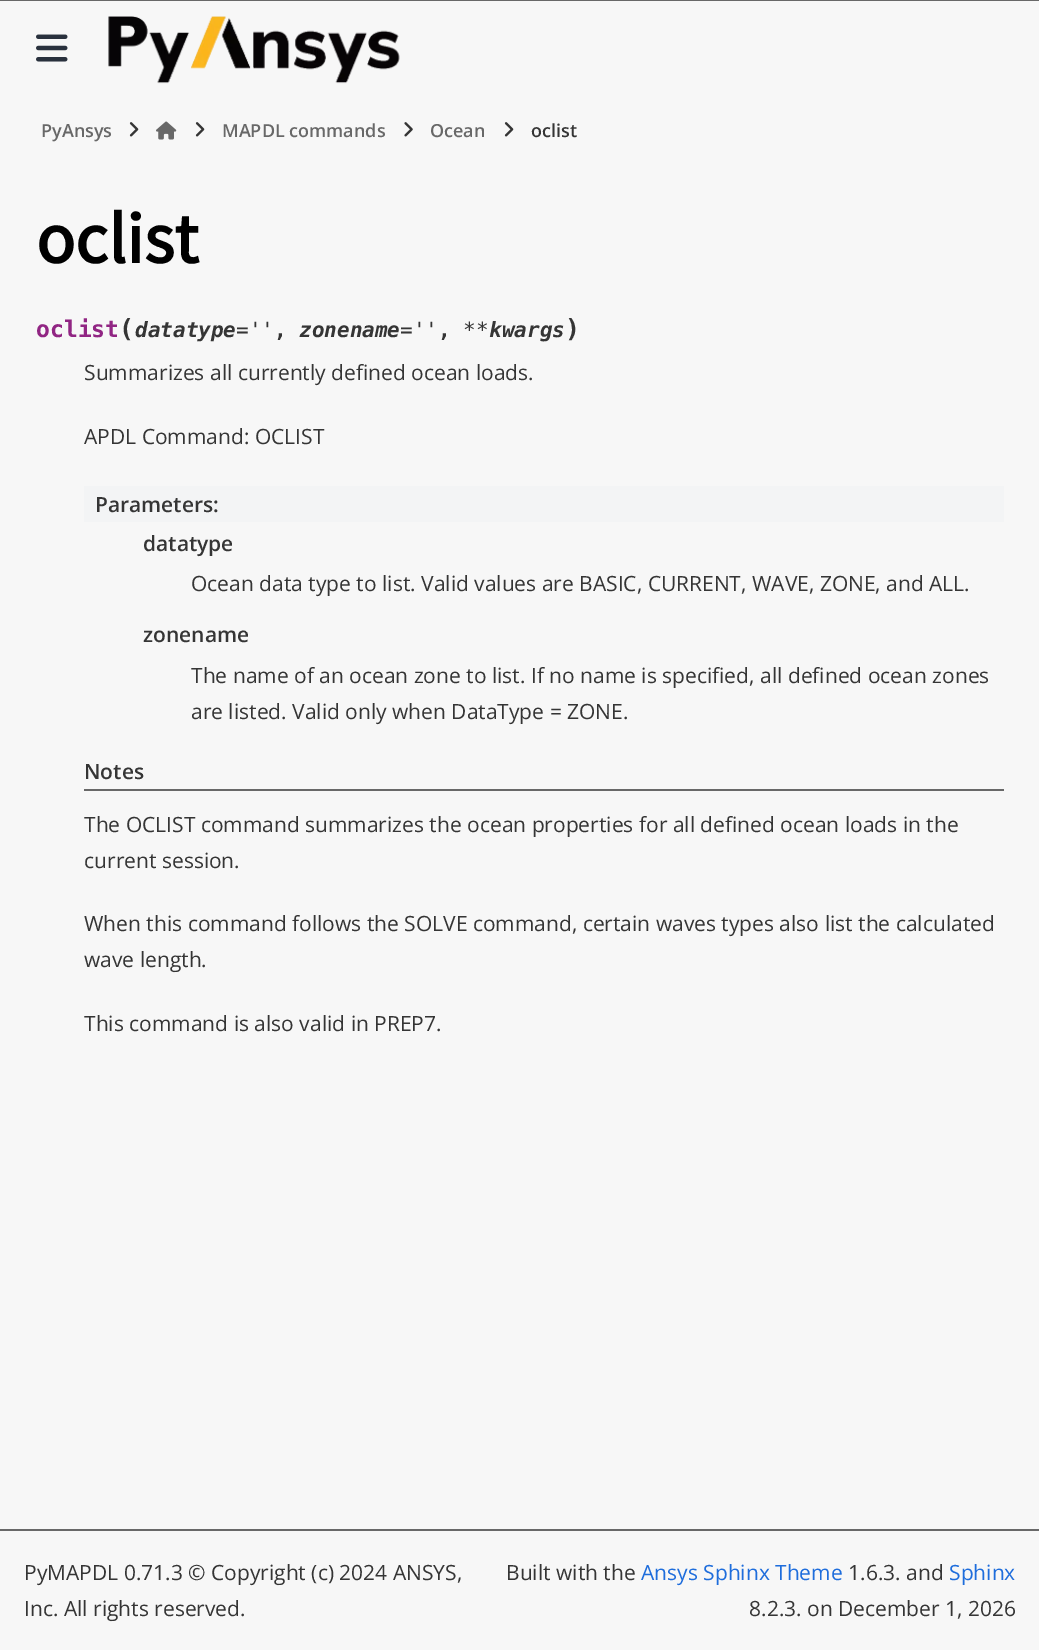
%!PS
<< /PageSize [1039 1650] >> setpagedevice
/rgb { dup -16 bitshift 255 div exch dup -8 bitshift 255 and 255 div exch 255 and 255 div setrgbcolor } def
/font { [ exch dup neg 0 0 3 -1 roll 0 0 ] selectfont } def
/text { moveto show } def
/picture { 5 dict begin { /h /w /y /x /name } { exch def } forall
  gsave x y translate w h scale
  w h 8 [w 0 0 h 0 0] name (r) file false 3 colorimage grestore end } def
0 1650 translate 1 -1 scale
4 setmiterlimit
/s1 { /OpenSans-SemiBold 18 font 16#686868 rgb } def
/s2 { /OpenSans-SemiBold 18 font 16#353535 rgb } def
/s3 { /SourceSansPro-Bold 72 font 16#000000 rgb } def
/s4 { /DejaVuSansMono-Bold 23 font 16#912583 rgb } def
/s5 { /DejaVuSansMono-Bold 25 font 16#353535 rgb } def
/s6 { /DejaVuSansMono-BoldItalic 21 font 16#353535 rgb } def
/s7 { /DejaVuSansMono-Italic 21 font 16#353535 rgb } def
/s8 { /DejaVuSansMono-Bold 21 font 16#353535 rgb } def
/s9 { /OpenSans-Regular 21 font 16#353535 rgb } def
/s10 { /OpenSans-SemiBold 21 font 16#353535 rgb } def
/s11 { /OpenSans-Regular 21 font 16#1E6DDC rgb } def
16#F7F7F7 rgb
0 0 1039 1650 rectfill
16#686868 rgb
0 0 1039 1 rectfill
(pic1.raw) 36 34 32 28 picture
(pic2.raw) 108 16 292 68 picture
s1
(PyAnsys) 41 137 text
(pic3.raw) 129 122 10 15 picture
(pic4.raw) 156 121 21 19 picture
(pic3.raw) 195 122 10 15 picture
(MAPDL commands) 222 137 text
(pic5.raw) 404 122 9 15 picture
(Ocean) 430 137 text
(pic3.raw) 504 122 10 15 picture
s2
(oclist) 531 137 text
s3
(oclist) 36 263 text
s4
(oclist) 36 337 text
s5
(\() 119 337 text
s6
(datatype) 135 337 text
s7
(='') 236 337 text
s8
(,) 274 337 text
s6
(zonename) 299 337 text
s7
(='') 400 337 text
s8
(,) 438 337 text
s7
(**) 463 337 text
s6
(kwargs) 489 337 text
s5
(\)) 565 337 text
s9
(Summarizes all currently defined ocean loads.) 84 380 text
(APDL Command: OCLIST) 84 444 text
16#F3F4F5 rgb
84 486 920 36 rectfill
s10
(Parameters:) 95 512 text
(datatype) 143 551 text
s9
(Ocean data type to list. Valid values are BASIC, CURRENT, WAVE, ZONE, and ALL.) 191 591 text
s10
(zonename) 143 642 text
s9
(The name of an ocean zone to list. If no name is specified, all defined ocean zones) 191 683 text
(are listed. Valid only when DataType = ZONE.) 191 719 text
16#686868 rgb
84 789 920 2 rectfill
s10
(Notes) 84 779 text
s9
(The OCLIST command summarizes the ocean properties for all defined ocean loads in the) 84 832 text
(current session.) 84 868 text
(When this command follows the SOLVE command, certain waves types also list the calculated) 84 931 text
(wave length.) 84 967 text
(This command is also valid in PREP7.) 84 1031 text
16#686868 rgb
0 1529 1039 2 rectfill
s9
(PyMAPDL 0.71.3 © Copyright \(c\) 2024 ANSYS,) 24 1580 text
(Inc. All rights reserved.) 24 1616 text
(Built with the) 506 1580 text
s11
(Ansys Sphinx Theme) 641 1580 text
s9
(1.6.3. and) 848 1580 text
s11
(Sphinx) 949 1580 text
s9
(8.2.3. on December 1, 2026) 749 1616 text
showpage
